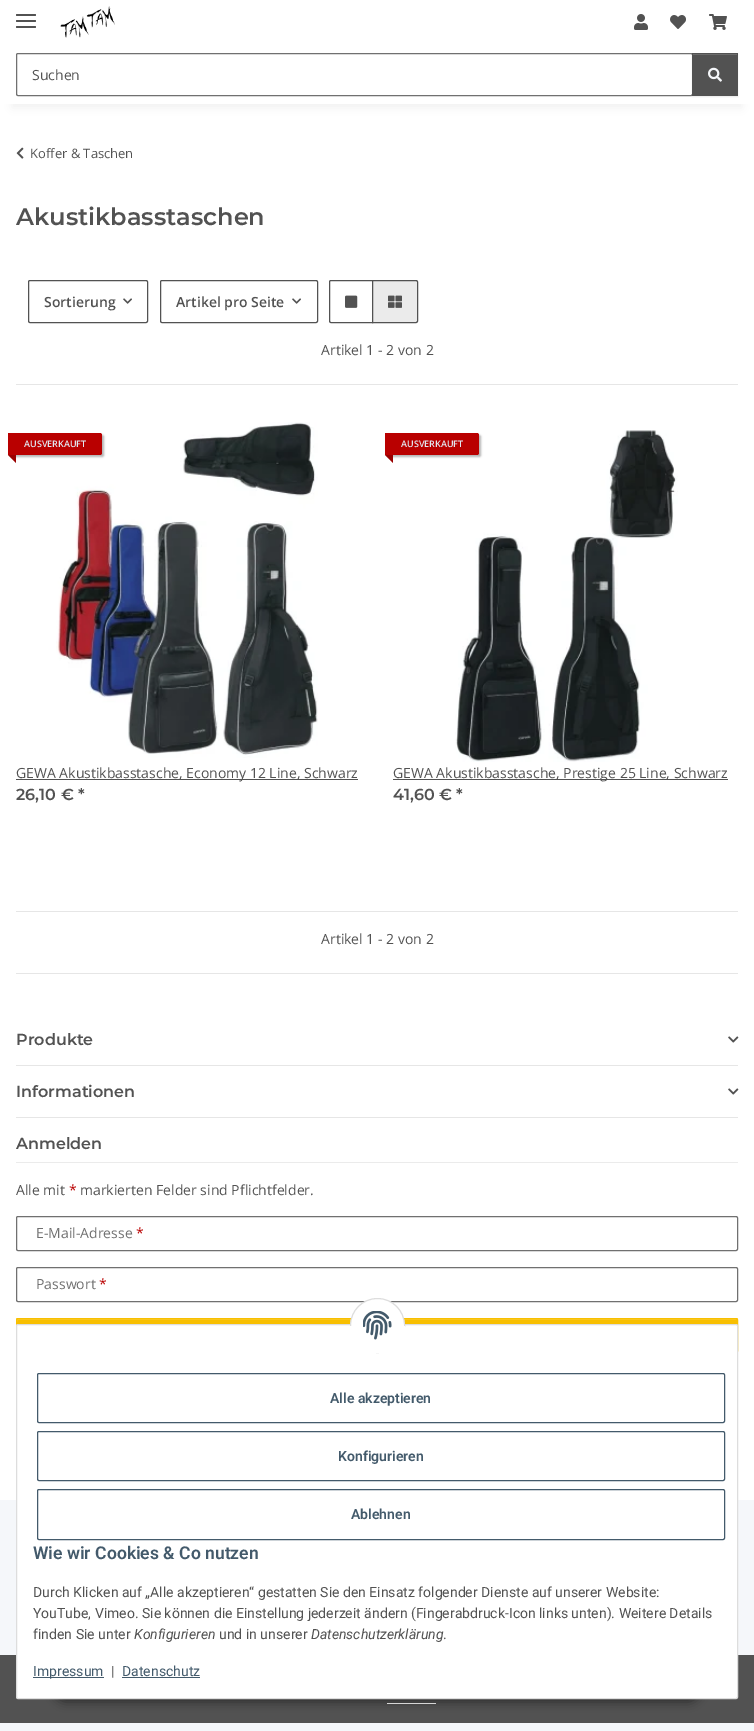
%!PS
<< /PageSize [754 1731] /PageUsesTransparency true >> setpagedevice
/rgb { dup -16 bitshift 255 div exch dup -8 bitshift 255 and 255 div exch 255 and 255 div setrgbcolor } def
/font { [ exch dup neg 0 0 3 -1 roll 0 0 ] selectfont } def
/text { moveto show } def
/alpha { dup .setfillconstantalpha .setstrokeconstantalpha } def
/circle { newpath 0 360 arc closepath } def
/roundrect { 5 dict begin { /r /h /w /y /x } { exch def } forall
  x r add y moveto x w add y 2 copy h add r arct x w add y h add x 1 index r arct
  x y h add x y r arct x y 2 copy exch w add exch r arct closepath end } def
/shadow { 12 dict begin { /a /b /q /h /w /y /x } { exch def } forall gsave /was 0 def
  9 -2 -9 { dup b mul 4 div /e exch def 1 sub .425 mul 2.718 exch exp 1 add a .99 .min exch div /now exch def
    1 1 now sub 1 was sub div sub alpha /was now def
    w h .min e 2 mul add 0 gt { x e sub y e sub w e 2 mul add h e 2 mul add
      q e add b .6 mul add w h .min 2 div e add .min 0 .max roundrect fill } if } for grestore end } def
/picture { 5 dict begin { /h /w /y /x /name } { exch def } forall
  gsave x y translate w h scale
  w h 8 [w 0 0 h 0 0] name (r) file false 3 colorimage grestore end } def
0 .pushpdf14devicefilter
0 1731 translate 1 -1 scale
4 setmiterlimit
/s1 { /OpenSans-Regular 14 font 16#525252 rgb } def
/s2 { /OpenSans-Regular 13 font 16#525252 rgb } def
/s3 { /Montserrat-SemiBold 24 font 16#525252 rgb } def
/s4 { /OpenSans-SemiBold 14 font 16#525252 rgb } def
/s5 { /OpenSans-SemiBold 9 font 16#E1E7F0 rgb } def
/s6 { /Montserrat-SemiBold 16 font 16#525252 rgb } def
/s7 { /OpenSans-Regular 14 font 16#B90000 rgb } def
/s8 { /OpenSans-Regular 14 font 16#707070 rgb } def
/s9 { /Roboto-SemiBold 14 font 16#435A6B rgb } def
/s10 { /Roboto-SemiBold 17.6 font 16#435A6B rgb } def
/s11 { /Roboto-Regular 14 font 16#525252 rgb } def
/s12 { /Roboto-Italic 14 font 16#525252 rgb } def
/s13 { /Roboto-Regular 14 font 16#435A6B rgb } def
16#F5F7FA rgb
0 0 754 1731 rectfill
16#FFFFFF rgb
0 104 754 1396 rectfill
16#000000 rgb
12 28 730 80 0 4.5 0.06 shadow
16#FFFFFF rgb
0 0 754 104 rectfill
16#525252 rgb
16 20 20 2 1 roundrect fill
16 14 20 2 1 roundrect fill
16 26 20 2 1 roundrect fill
(pic1.raw) 60 6 55 32 picture
(pic2.raw) 634 14 14 16 picture
(pic3.raw) 670 15 16 14 picture
(pic4.raw) 709 14 18 16 picture
16#707070 rgb
16.5 53.5 676 42 1.5 roundrect stroke
s1
(Suchen) 32 80 text
16#000000 rgb
692 54 46 43 0 0.5 0.07 shadow
16#525252 rgb
692 53 46 43 rectfill
16#6C6C6C rgb
693 54 44 1 rectfill
(pic5.raw) 708 67 14 15 picture
(pic6.raw) 16 147 8 12 picture
s2
(Koffer & Taschen) 30 158 text
s3
(Akustikbasstaschen) 16 225 text
28.5 280.5 119 42 1.5 roundrect stroke
s4
(Sortierung) 44 307 text
(pic7.raw) 123 298 9 6 picture
160.5 280.5 157 42 1.5 roundrect stroke
(Artikel pro Seite) 176 307 text
(pic7.raw) 292 298 9 6 picture
331 280.5 moveto 372.5 280.5 lineto 372.5 322.5 lineto 331 322.5 lineto 330 322.5 329.5 322 329.5 321 curveto 329.5 282 lineto 329.5 281 330 280.5 331 280.5 curveto closepath stroke
(pic8.raw) 345 295 13 13 picture
16#EBEBEB rgb
372.5 280.5 moveto 416 280.5 lineto 417 280.5 417.5 281 417.5 282 curveto 417.5 321 lineto 417.5 322 417 322.5 416 322.5 curveto 372.5 322.5 lineto closepath gsave fill grestore
16#525252 rgb
stroke
(pic9.raw) 388 295 14 13 picture
s1
(Artikel 1 - 2 von 2) 321 355 text
16#E6E6E6 rgb
16 384 722 1 rectfill
(pic10.raw) 56 422 262 336 picture
16#000000 rgb
10 435 94 22 2 1 0.3 shadow
16#B90000 rgb
8 433 moveto 100 433 lineto 101 433 102 434 102 435 curveto 102 453 lineto 102 454 101 455 100 455 curveto 8 455 lineto closepath fill
s5
(AUSVERKAUFT) 24 447 text
16#9A0000 rgb
16 455 moveto 16 463 lineto 8 455 lineto closepath fill
16#525252 rgb
16 779 342 1 rectfill
s1
(GEWA Akustikbasstasche, Economy 12 Line, Schwarz) 16 778 text
s6
(26,10 € *) 16 800 text
(pic11.raw) 455 430 223 332 picture
16#000000 rgb
387 435 94 22 2 1 0.3 shadow
16#B90000 rgb
385 433 moveto 477 433 lineto 478 433 479 434 479 435 curveto 479 453 lineto 479 454 478 455 477 455 curveto 385 455 lineto closepath fill
s5
(AUSVERKAUFT) 401 447 text
16#9A0000 rgb
393 455 moveto 393 463 lineto 385 455 lineto closepath fill
16#525252 rgb
393 779 335 1 rectfill
s1
(GEWA Akustikbasstasche, Prestige 25 Line, Schwarz) 393 778 text
s6
(41,60 € *) 393 800 text
16#E6E6E6 rgb
16 911 722 1 rectfill
s1
(Artikel 1 - 2 von 2) 321 944 text
16#E6E6E6 rgb
16 973 722 1 rectfill
s6
(Produkte) 16 1045 text
(pic12.raw) 728 1036 11 7 picture
16#E6E6E6 rgb
16 1065 722 1 rectfill
s6
(Informationen) 16 1097 text
(pic12.raw) 728 1088 11 7 picture
16#E6E6E6 rgb
16 1117 722 1 rectfill
16#EBEBEB rgb
16 1162 722 1 rectfill
s6
(Anmelden) 16 1149 text
s1
(Alle mit) 16 1195 text
s7
(*) 69 1195 text
s1
(markierten Felder sind Pflichtfelder.) 80 1195 text
16#707070 rgb
16.5 1216.5 721 34 1.5 roundrect stroke
(E-Mail-Adresse) 36 1238 text
s7
(*) 136 1238 text
16#707070 rgb
16.5 1267.5 721 34 1.5 roundrect stroke
(Passwort) 36 1289 text
s7
(*) 99 1289 text
16#F8BF00 rgb
16 1318 722 35 2 roundrect fill
16#F9C926 rgb
18 1320 moveto 737 1320 lineto 736 1319 lineto 18 1319 lineto 17 1319 17 1321 17 1322 curveto closepath fill
16#F8BF00 rgb
16.5 1318.5 721 34 1.5 roundrect stroke
16#525252 rgb
0 1655 754 68 rectfill
16#FFFFFF rgb
387 1703 49 1 rectfill
16#000000 rgb
53 1670 648 32 16 5 0.45 shadow
16#FFFFFF rgb
16.5 1324.5 721 374 1.5 roundrect gsave fill grestore
16#DDDDDD rgb
stroke
16#FFFFFF rgb
377.5 1325.5 27 circle gsave fill grestore
16#DDDDDD rgb
stroke
16#FFFFFF rgb
350 1326 55 27 rectfill
(pic13.raw) 363 1311 29 29 picture
16#435A6B rgb
37.5 1373.5 687 49 1.5 roundrect stroke
s9
(Alle akzeptieren) 330 1403 text
37.5 1431.5 687 49 1.5 roundrect stroke
(Konfigurieren) 338 1461 text
37.5 1489.5 687 50 1.5 roundrect stroke
(Ablehnen) 351 1519 text
s10
(Wie wir Cookies & Co nutzen) 33 1559 text
s11
(Durch Klicken auf „Alle akzeptieren“ gestatten Sie den Einsatz folgender Dienste auf unserer Website:) 33 1597 text
(YouTube, Vimeo. Sie können die Einstellung jederzeit ändern \(Fingerabdruck-Icon links unten\). Weitere Details) 33 1618 text
(finden Sie unter) 33 1639 text
s12
(Konfigurieren) 134 1639 text
s11
(und in unserer) 219 1639 text
s12
(Datenschutzerklärung) 311 1639 text
s11
(.) 443 1639 text
16#435A6B rgb
33 1677 71 1 rectfill
(Impressum) 33 1676 text
s11
(|) 111 1676 text
s13
(Datenschutz) 122 1676 text
122 1677 78 1 rectfill
.poppdf14devicefilter showpage
